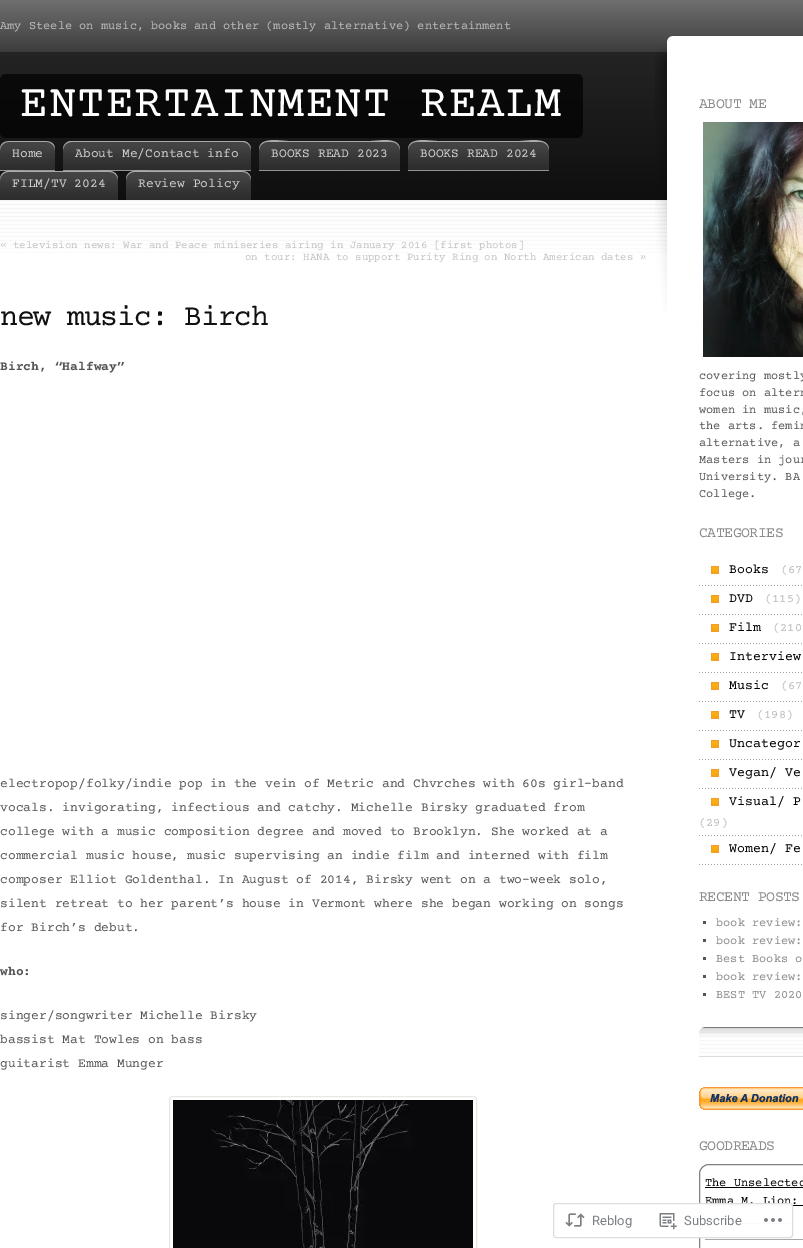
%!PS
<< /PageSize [803 1248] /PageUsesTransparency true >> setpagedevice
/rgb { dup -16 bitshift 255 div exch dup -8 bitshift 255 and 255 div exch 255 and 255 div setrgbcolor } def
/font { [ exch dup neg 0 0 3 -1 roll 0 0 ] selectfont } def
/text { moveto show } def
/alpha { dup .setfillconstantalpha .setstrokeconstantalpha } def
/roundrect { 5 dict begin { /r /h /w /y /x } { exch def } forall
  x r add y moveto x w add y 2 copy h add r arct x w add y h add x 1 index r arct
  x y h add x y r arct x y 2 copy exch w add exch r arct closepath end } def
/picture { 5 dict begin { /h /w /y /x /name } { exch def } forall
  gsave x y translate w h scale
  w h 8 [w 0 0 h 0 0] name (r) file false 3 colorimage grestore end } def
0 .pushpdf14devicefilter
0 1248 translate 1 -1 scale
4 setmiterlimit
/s1 { /CourierPrime-Regular 12 font 16#BBBBBB rgb } def
/s2 { /CourierPrime-Regular 13 font 16#CFCFCF rgb } def
/s3 { /CourierPrime-Regular 10.8 font 16#C4C3C1 rgb } def
/s4 { /CourierPrime-Bold 13 font 16#555555 rgb } def
/s5 { /CourierPrime-Regular 13 font 16#555555 rgb } def
/s6 { /CourierPrime-Regular 12 font 16#555555 rgb } def
/s7 { /CourierPrime-Regular 13.25 font 16#000000 rgb } def
/s8 { /CourierPrime-Regular 12 font 16#8B8B89 rgb } def
/s9 { /CourierPrime-Regular 12 font 16#000000 rgb } def
/s10 { /Roboto-Regular 13 font 16#7B7F85 rgb } def
16#FFFFFF rgb
0 0 803 1248 rectfill
(pic1.raw) 0 200 667 53 picture
gsave 0 0 moveto 803 0 lineto 803 200 lineto 0 200 lineto closepath clip newpath
<< /ShadingType 2 /ColorSpace /DeviceRGB /Coords [0 0 0 200] /Extend [true true] /Function << /FunctionType 3 /Domain [0 1] /Functions [<< /FunctionType 2 /Domain [0 1] /C0 [0.439 0.439 0.439] /C1 [0.239 0.239 0.239] /N 1 >> << /FunctionType 2 /Domain [0 1] /C0 [0.141 0.141 0.141] /C1 [0.059 0.059 0.059] /N 1 >>] /Bounds [0.26] /Encode [0 1 0 1] >> >> shfill grestore
s1
(Amy Steele on music, books and other \(mostly alternative\) entertainment) 0 29 text
0.7 alpha
16#000000 rgb
0 74 583 64 6 roundrect fill
/CourierPrime-Regular 46 font
1 alpha
16#FFFFFF rgb
20 116 moveto 1 0 (ENTERTAINMENT REALM) ashow
(pic2.raw) 0 141 55 30 picture
16#AAAAAA rgb
8 142 moveto 47 142 lineto 51 142 55 146 55 150 curveto 55 141 48 141 40 141 curveto 14 141 lineto 7 141 0 141 0 150 curveto 0 146 4 142 8 142 curveto closepath fill
s2
(Home) 12 157 text
(pic3.raw) 63 141 188 30 picture
16#AAAAAA rgb
71 142 moveto 243 142 lineto 247 142 251 146 251 150 curveto 251 149 lineto 251 145 247 141 243 141 curveto 71 141 lineto 67 141 63 145 63 149 curveto 63 150 lineto 63 146 67 142 71 142 curveto closepath fill
s2
(About Me/Contact info) 75 157 text
(pic4.raw) 259 141 141 30 picture
16#AAAAAA rgb
267 142 moveto 392 142 lineto 396 142 400 146 400 150 curveto 400 136 378 141 371 141 curveto 288 141 lineto 281 141 259 136 259 150 curveto 259 146 263 142 267 142 curveto closepath fill
s2
(BOOKS READ 2023) 271 157 text
(pic4.raw) 408 141 141 30 picture
16#AAAAAA rgb
416 142 moveto 541 142 lineto 545 142 549 146 549 150 curveto 549 136 527 141 520 141 curveto 437 141 lineto 430 141 408 136 408 150 curveto 408 146 412 142 416 142 curveto closepath fill
s2
(BOOKS READ 2024) 420 157 text
(pic5.raw) 0 171 118 29 picture
16#AAAAAA rgb
8 172 moveto 110 172 lineto 114 172 118 176 118 180 curveto 118 167 101 171 93 171 curveto 25 171 lineto 17 171 0 167 0 180 curveto 0 176 4 172 8 172 curveto closepath fill
s2
(FILM/TV 2024) 12 187 text
(pic6.raw) 126 171 125 29 picture
16#AAAAAA rgb
134 172 moveto 243 172 lineto 247 172 251 176 251 180 curveto 251 167 233 171 225 171 curveto 152 171 lineto 144 171 126 167 126 180 curveto 126 176 130 172 134 172 curveto closepath fill
s2
(Review Policy) 138 187 text
s3
(«) 0 248 text
(television news: War and Peace miniseries airing in January 2016 [first photos]) 13 248 text
(on tour: HANA to support Purity Ring on North American dates) 245 260 text
(») 640 260 text
/CourierPrime-Regular 30 font
16#111111 rgb
0 325 moveto -1.25 0 (new music: Birch) ashow
s4
(Birch, “Halfway”) 0 370 text
s5
(electropop/folky/indie pop in the vein of Metric and Chvrches with 60s girl-band) 0 787 text
(vocals. invigorating, infectious and catchy. Michelle Birsky graduated from) 0 811 text
(college with a music composition degree and moved to Brooklyn. She worked at a) 0 835 text
(commercial music house, music supervising an indie film and interned with film) 0 859 text
(composer Elliot Goldenthal. In August of 2014, Birsky went on a two-week solo,) 0 883 text
(silent retreat to her parent’s house in Vermont where she began working on songs) 0 907 text
(for Birch’s debut.) 0 931 text
s4
(who:) 0 975 text
s5
(singer/songwriter Michelle Birsky) 0 1019 text
(bassist Mat Towles on bass) 0 1043 text
(guitarist Emma Munger) 0 1067 text
16#E7E8E6 rgb
169.5 1096.5 307 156 3.5 roundrect stroke
(pic7.raw) 173 1100 300 148 picture
(pic8.raw) 655 36 24 277 picture
16#FFFFFF rgb
679 36 124 164 rectfill
/CourierPrime-Regular 15 font
16#8B8B89 rgb
699 108 moveto -0.6 0 (ABOUT ME) ashow
(pic9.raw) 703 122 100 235 picture
s6
(covering mostly) 699 379 text
(focus on altern) 699 396 text
(women in music,) 699 413 text
(the arts. femin) 699 429 text
(alternative, a) 699 446 text
(Masters in jour) 699 463 text
(University. BA) 699 480 text
(College.) 699 497 text
/CourierPrime-Regular 15 font
16#8B8B89 rgb
699 537 moveto -0.6 0 (CATEGORIES) ashow
(pic10.raw) 699 585 103 1 picture
(pic11.raw) 711 566 8 8 picture
s7
(Books) 729 573 text
s1
(\(67) 781 573 text
(pic10.raw) 699 614 103 1 picture
(pic11.raw) 711 595 8 8 picture
s7
(DVD) 729 602 text
s1
(\(115\)) 765 602 text
(pic10.raw) 699 643 103 1 picture
(pic11.raw) 711 624 8 8 picture
s7
(Film) 729 631 text
s1
(\(210) 773 631 text
(pic10.raw) 699 672 103 1 picture
(pic11.raw) 711 653 8 8 picture
s7
(Interview) 729 660 text
(pic10.raw) 699 701 103 1 picture
(pic11.raw) 711 682 8 8 picture
(Music) 729 689 text
s1
(\(67) 781 689 text
(pic10.raw) 699 730 103 1 picture
(pic11.raw) 711 711 8 8 picture
s7
(TV) 729 718 text
s1
(\(198\)) 757 718 text
(pic10.raw) 699 759 103 1 picture
(pic11.raw) 711 740 8 8 picture
s7
(Uncategor) 729 747 text
(pic10.raw) 699 788 103 1 picture
(pic11.raw) 711 769 8 8 picture
(Vegan/ Ve) 729 776 text
(pic10.raw) 699 835 103 1 picture
(pic11.raw) 711 798 8 8 picture
(Visual/ P) 729 805 text
s1
(\(29\)) 699 826 text
(pic10.raw) 699 864 103 1 picture
(pic11.raw) 711 845 8 8 picture
s7
(Women/ Fe) 729 852 text
/CourierPrime-Regular 15 font
16#8B8B89 rgb
699 901 moveto -0.6 0 (RECENT POSTS) ashow
16#555555 rgb
703 921 3 3 rectfill
s8
(book review:) 716 926 text
16#555555 rgb
703 939 3 3 rectfill
s8
(book review:) 716 944 text
16#555555 rgb
703 957 3 3 rectfill
s8
(Best Books o) 716 962 text
16#555555 rgb
703 975 3 3 rectfill
s8
(book review:) 716 980 text
16#555555 rgb
703 993 3 3 rectfill
s8
(BEST TV 2020) 716 998 text
(pic12.raw) 699 1027 104 30 picture
(pic13.raw) 699 1087 104 23 picture
/CourierPrime-Regular 15 font
699 1150 moveto -0.6 0 (GOODREADS) ashow
16#808080 rgb
699.5 1164.5 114 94 9.5 roundrect stroke
16#A7AAAD rgb
705 1239 98 1 rectfill
s9
(The Unselected) 705 1186 text
705 1187 98 1 rectfill
(Emma M. Lion:) 705 1204 text
705 1205 98 1 rectfill
723 1223 66 1 rectfill
0.98 alpha
16#FFFFFF rgb
553 1203 240 35 3 roundrect fill
16#DCDCDE rgb
553.5 1203.5 239 34 2.5 roundrect stroke
1 alpha
(pic14.raw) 565 1213 20 14 picture
s10
(Reblog) 592 1225 text
(pic15.raw) 659 1213 18 17 picture
(Subscribe) 684 1225 text
(pic16.raw) 764 1218 18 4 picture
.poppdf14devicefilter showpage
